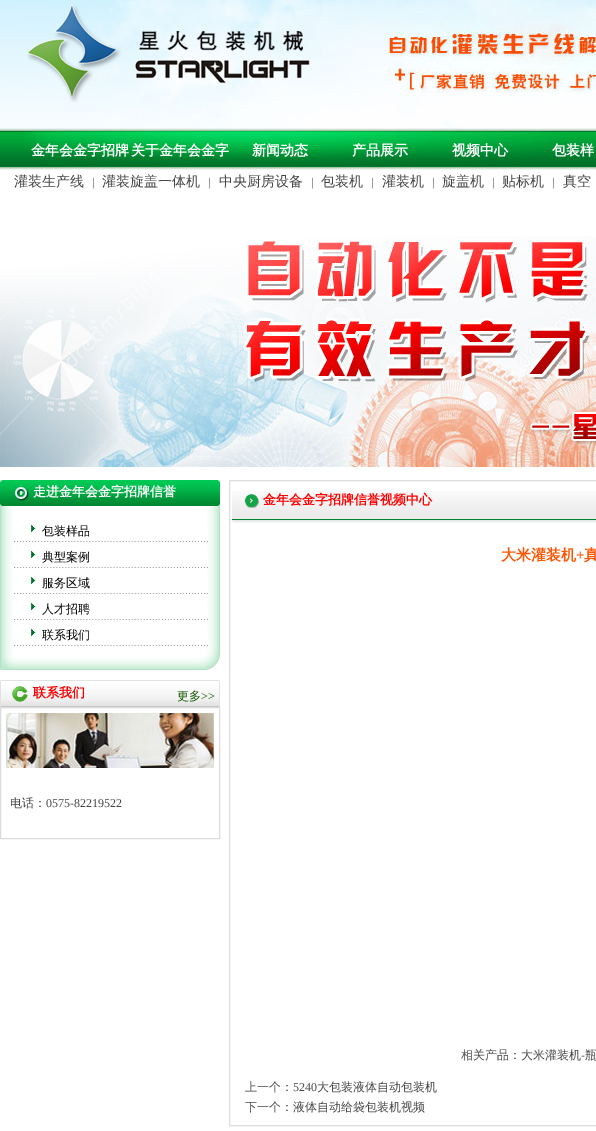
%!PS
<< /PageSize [596 1131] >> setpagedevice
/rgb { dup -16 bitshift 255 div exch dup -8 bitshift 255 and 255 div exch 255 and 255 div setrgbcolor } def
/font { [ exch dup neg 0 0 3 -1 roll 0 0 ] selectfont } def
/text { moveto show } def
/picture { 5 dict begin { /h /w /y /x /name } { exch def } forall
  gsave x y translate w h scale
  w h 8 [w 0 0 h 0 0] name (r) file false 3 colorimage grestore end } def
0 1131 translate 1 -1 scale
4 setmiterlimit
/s1 { /WenQuanYiZenHei-Bold 14 font 16#FFFFFF rgb } def
/s2 { /WenQuanYiZenHei-Medium 14 font 16#454545 rgb } def
/s3 { /LiberationSerif-Regular 12 font 16#454545 rgb } def
/s4 { /WenQuanYiZenHei-Bold 13 font 16#FFFFFF rgb } def
/s5 { /WenQuanYiZenHei-Medium 12 font 16#000000 rgb } def
/s6 { /WenQuanYiZenHei-Bold 13 font 16#FF0000 rgb } def
/s7 { /WenQuanYiZenHei-Medium 12 font 16#145A00 rgb } def
/s8 { /LiberationSerif-Regular 12 font 16#145A00 rgb } def
/s9 { /WenQuanYiZenHei-Medium 12 font 16#454545 rgb } def
/s10 { /WenQuanYiZenHei-Bold 15 font 16#FF5400 rgb } def
/s11 { /LiberationSerif-Bold 15 font 16#FF5400 rgb } def
16#FFFFFF rgb
0 0 596 1131 rectfill
(pic1.raw) 0 0 596 170 picture
(pic2.raw) 27 0 296 103 picture
(pic3.raw) 388 0 208 126 picture
s1
(金年会金字招牌) 31 155 text
(关于金年会金字) 131 155 text
(新闻动态) 252 155 text
(产品展示) 352 155 text
(视频中心) 452 155 text
(包装样) 552 155 text
s2
(灌装生产线) 14 186 text
s3
(|) 92 186 text
s2
(灌装旋盖一体机) 102 186 text
s3
(|) 208 186 text
s2
(中央厨房设备) 219 186 text
s3
(|) 311 186 text
s2
(包装机) 321 186 text
s3
(|) 371 186 text
s2
(灌装机) 382 186 text
s3
(|) 432 186 text
s2
(旋盖机) 442 186 text
s3
(|) 492 186 text
s2
(贴标机) 502 186 text
s3
(|) 552 186 text
s2
(真空) 563 186 text
(pic4.raw) 0 236 596 231 picture
(pic5.raw) 0 480 220 26 picture
s4
(走进金年会金字招牌信誉) 33 496 text
(pic6.raw) 0 506 220 140 picture
(pic7.raw) 14 525 194 17 picture
s5
(包装样品) 42 535 text
(pic7.raw) 14 551 194 17 picture
(典型案例) 42 561 text
(pic7.raw) 14 577 194 17 picture
(服务区域) 42 587 text
(pic7.raw) 14 603 194 17 picture
(人才招聘) 42 613 text
(pic7.raw) 14 629 194 17 picture
(联系我们) 42 639 text
(pic8.raw) 0 646 220 24 picture
(pic9.raw) 0 680 220 27 picture
s6
(联系我们) 33 697 text
s7
(更多) 177 700 text
s8
(>>) 201 700 text
16#DCDCDC rgb
0.5 707.5 219 131 rectstroke
(pic10.raw) 6 713 208 55 picture
s9
(电话：) 10 807 text
s3
(0575-82219522) 46 807 text
16#DDDDDD rgb
229.5 480.5 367 645 rectstroke
(pic11.raw) 231 491 365 32 picture
s6
(金年会金字招牌信誉视频中心) 263 504 text
s10
(大米灌装机) 501 560 text
s11
(+) 576 560 text
s10
(真) 584 560 text
s9
(相关产品：大米灌装机) 461 1059 text
s3
(-) 581 1059 text
s9
(瓶) 585 1059 text
(上一个：) 245 1091 text
s3
(5240) 293 1091 text
s9
(大包装液体自动包装机) 317 1091 text
(下一个：液体自动给袋包装机视频) 245 1111 text
showpage
